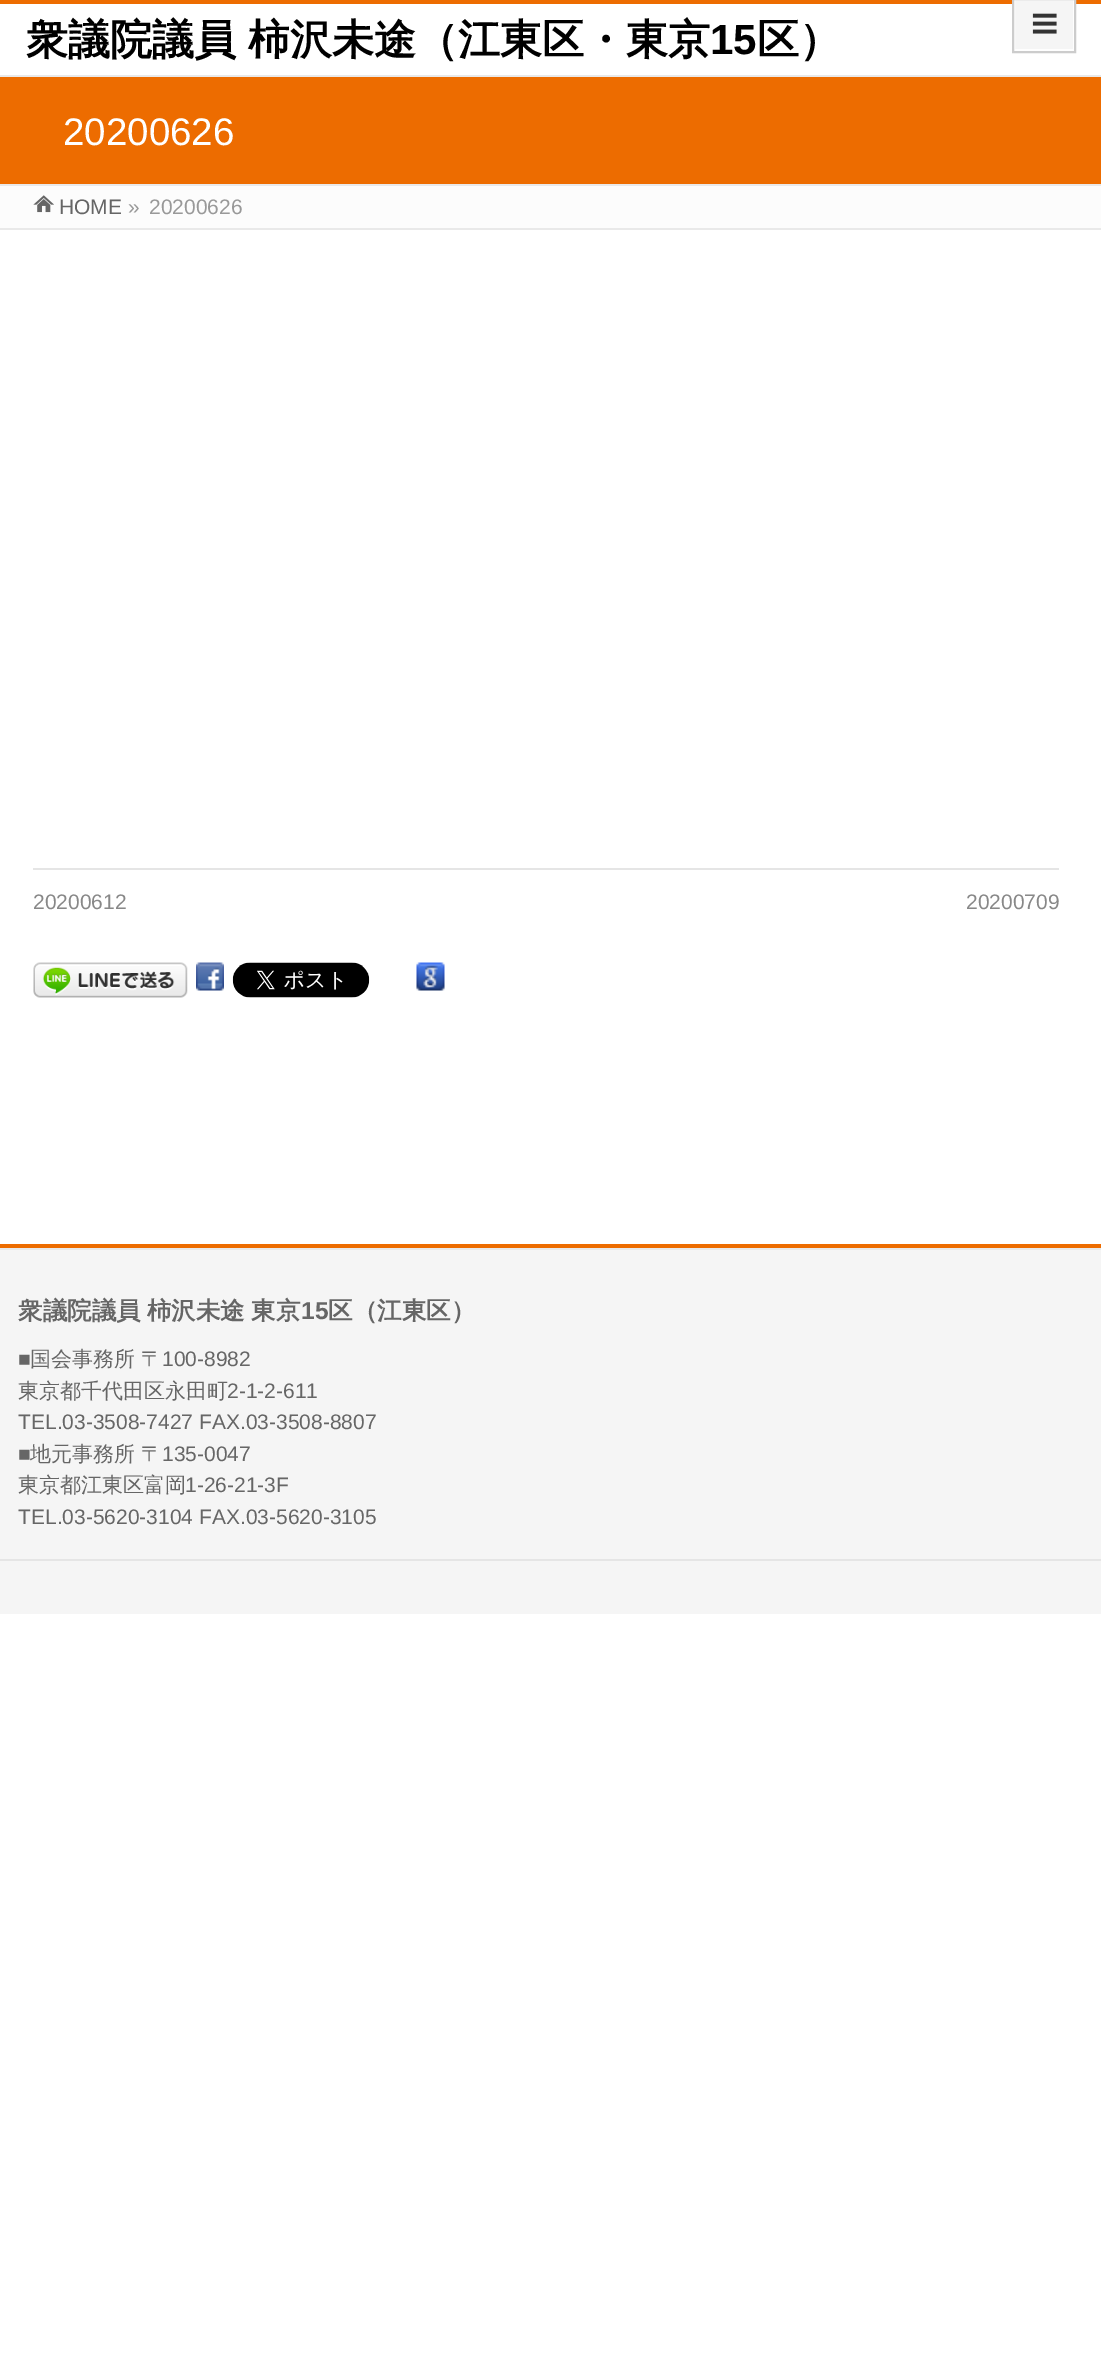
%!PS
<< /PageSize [1101 2380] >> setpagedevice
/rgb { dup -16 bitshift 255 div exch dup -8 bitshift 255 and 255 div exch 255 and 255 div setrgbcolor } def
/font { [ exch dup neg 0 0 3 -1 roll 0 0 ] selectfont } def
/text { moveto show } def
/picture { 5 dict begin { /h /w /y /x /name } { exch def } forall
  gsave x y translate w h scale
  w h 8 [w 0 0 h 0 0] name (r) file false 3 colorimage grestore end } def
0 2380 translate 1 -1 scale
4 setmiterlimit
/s1 { /LiberationSans-Bold 42 font 16#000000 rgb } def
/s2 { /WenQuanYiZenHei-Bold 42 font 16#000000 rgb } def
/s3 { /LiberationSans-Regular 38.5 font 16#FFFFFF rgb } def
/s4 { /LiberationSans-Regular 21 font 16#666666 rgb } def
/s5 { /LiberationSans-Regular 21 font 16#999999 rgb } def
/s6 { /LiberationSans-Regular 21 font 16#888888 rgb } def
/s7 { /LiberationSans-Bold 24.5 font 16#666666 rgb } def
/s8 { /WenQuanYiZenHei-Bold 24.5 font 16#666666 rgb } def
/s9 { /WenQuanYiZenHei-Medium 21 font 16#666666 rgb } def
16#FFFFFF rgb
0 0 1101 2380 rectfill
16#ED6C00 rgb
0 0 1101 4 rectfill
/WenQuanYiZenHei-Bold 42 font
16#000000 rgb
26 54 moveto -1 0 32 (衆議院議員 柿沢未途（江東区・東京) widthshow
s1
(15) 710 54 text
s2
(区）) 757 54 text
16#F5F5F5 rgb
1014 -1 moveto 1074 -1 lineto 1074 50 lineto 1014 50 lineto closepath gsave fill grestore
16#FEFEFE rgb
2 setlinewidth
stroke
16#CCCCCC rgb
1013 -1 62 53 rectstroke
(pic1.raw) 1032 13 25 21 picture
16#ED6C00 rgb
0 77 1101 107 rectfill
16#E9E9E9 rgb
0 75 1101 2 rectfill
0 184 1101 2 rectfill
s3
(20200626) 63 145 text
16#FCFCFC rgb
0 186 1101 42 rectfill
(pic2.raw) 33 195 21 18 picture
s4
(HOME) 59 214 text
s5
(») 128 214 text
(20200626) 149 214 text
16#E9E9E9 rgb
0 228 1101 2 rectfill
16#E5E5E5 rgb
33 868 1026 2 rectfill
s6
(20200612) 33 909 text
(20200709) 966 909 text
(pic3.raw) 33 962 155 36 picture
(pic4.raw) 196 962 28 29 picture
(pic5.raw) 232 962 138 36 picture
(pic6.raw) 416 962 29 29 picture
16#ED6C00 rgb
0 1244 1101 4 rectfill
16#E9E9E9 rgb
0 1248 1101 2 rectfill
16#F5F5F5 rgb
0 1250 1101 309 rectfill
/WenQuanYiZenHei-Bold 24.5 font
16#666666 rgb
18 1319 moveto -1 0 32 (衆議院議員 柿沢未途 東京) widthshow
s7
(15) 301 1319 text
s8
(区（江東区）) 328 1319 text
s4
(■) 18 1366 text
s9
(国会事務所 〒) 30 1366 text
s4
(100-8982) 162 1366 text
s9
(東京都千代田区永田町) 18 1398 text
s4
(2-1-2-611) 227 1398 text
(TEL.03-3508-7427 FAX.03-3508-8807) 18 1429 text
(■) 18 1461 text
s9
(地元事務所 〒) 30 1461 text
s4
(135-0047) 162 1461 text
s9
(東京都江東区富岡) 18 1492 text
s4
(1-26-21-3F) 185 1492 text
(TEL.03-5620-3104 FAX.03-5620-3105) 18 1524 text
16#F5F5F5 rgb
0 1561 1101 53 rectfill
16#E5E5E5 rgb
0 1559 1101 2 rectfill
showpage
